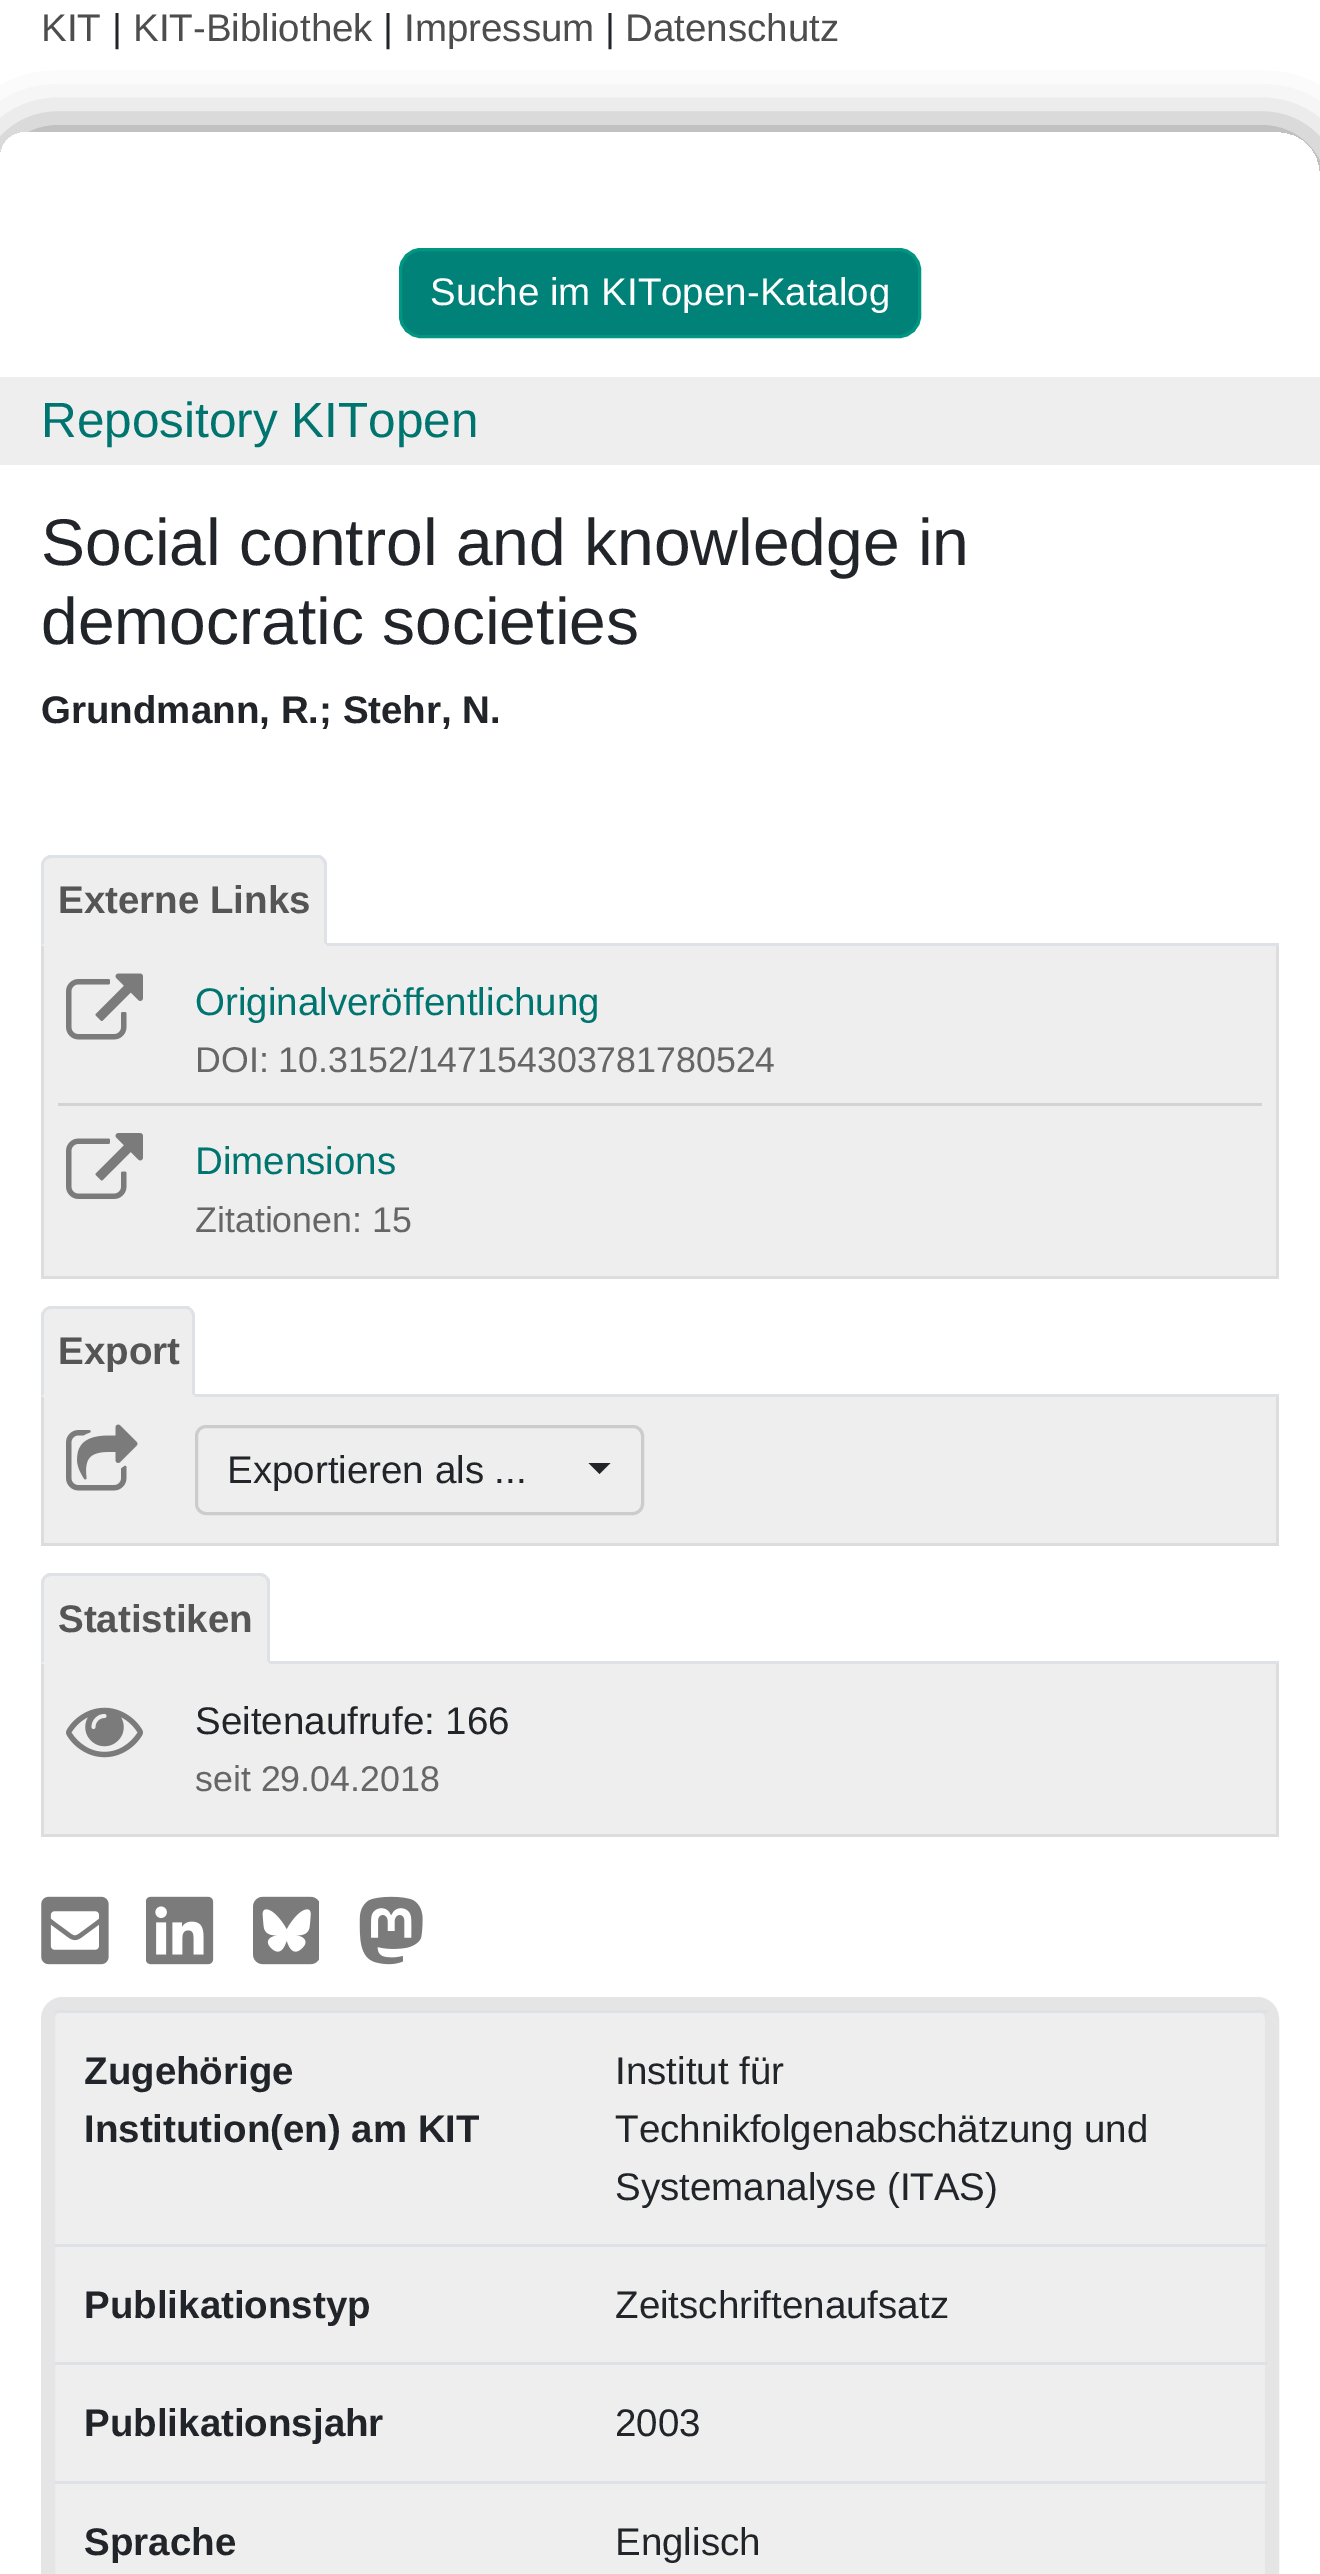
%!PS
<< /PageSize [1320 2574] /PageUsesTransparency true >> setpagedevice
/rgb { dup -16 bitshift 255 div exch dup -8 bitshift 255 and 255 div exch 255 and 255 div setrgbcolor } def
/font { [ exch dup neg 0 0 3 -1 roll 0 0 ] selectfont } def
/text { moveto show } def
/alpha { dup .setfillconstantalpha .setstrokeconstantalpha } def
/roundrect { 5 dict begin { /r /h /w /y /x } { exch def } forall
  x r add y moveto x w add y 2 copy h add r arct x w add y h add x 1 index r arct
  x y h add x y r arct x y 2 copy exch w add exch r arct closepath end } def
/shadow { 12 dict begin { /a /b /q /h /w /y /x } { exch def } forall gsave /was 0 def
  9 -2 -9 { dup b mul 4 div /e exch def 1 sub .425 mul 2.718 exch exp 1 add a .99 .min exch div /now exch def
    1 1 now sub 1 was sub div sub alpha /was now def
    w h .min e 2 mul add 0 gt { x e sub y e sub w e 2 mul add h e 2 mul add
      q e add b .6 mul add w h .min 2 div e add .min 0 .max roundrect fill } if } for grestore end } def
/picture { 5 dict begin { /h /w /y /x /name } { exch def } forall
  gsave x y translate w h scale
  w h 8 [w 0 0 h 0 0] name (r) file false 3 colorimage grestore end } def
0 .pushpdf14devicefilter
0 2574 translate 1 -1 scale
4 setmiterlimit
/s1 { /LiberationSans-Regular 38.5 font 16#4D4D4D rgb } def
/s2 { /LiberationSans-Regular 38.5 font 16#212529 rgb } def
/s3 { /LiberationSans-Regular 38.5 font 16#FFFFFF rgb } def
/s4 { /LiberationSans-Regular 49.5 font 16#007570 rgb } def
/s5 { /LiberationSans-Regular 66 font 16#212529 rgb } def
/s6 { /LiberationSans-Bold 38.5 font 16#212529 rgb } def
/s7 { /LiberationSans-Bold 38.5 font 16#555555 rgb } def
/s8 { /LiberationSans-Regular 38.5 font 16#007570 rgb } def
/s9 { /LiberationSans-Regular 35.75 font 16#666666 rgb } def
16#FFFFFF rgb
0 0 1320 2574 rectfill
s1
(KIT) 41 41 text
gsave
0 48 moveto 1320 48 lineto 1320 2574 lineto 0 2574 lineto closepath 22 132 moveto 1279 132 lineto 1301.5 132 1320 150.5 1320 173 curveto 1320 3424 lineto 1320 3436 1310 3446 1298 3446 curveto 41 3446 lineto 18.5 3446 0 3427.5 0 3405 curveto 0 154 lineto 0 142 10 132 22 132 curveto closepath eoclip newpath
16#808080 rgb
0 132 1320 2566 41 27.5 1 shadow
grestore
s2
(|) 112 41 text
s1
(KIT-Bibliothek) 133 41 text
s2
(|) 383 41 text
s1
(Impressum) 404 41 text
s2
(|) 605 41 text
s1
(Datenschutz) 625 41 text
16#008278 rgb
400.5 249.5 519 87 20.5 roundrect gsave fill grestore
16#009682 rgb
3 setlinewidth
stroke
s3
(Suche im KITopen-Katalog) 430 305 text
16#EEEEEE rgb
0 377 1320 88 rectfill
s4
(Repository KITopen) 41 437 text
s5
(Social control and knowledge in) 41 565 text
(democratic societies) 41 644 text
s6
(Grundmann, R.; Stehr, N.) 41 723 text
16#DEE2E6 rgb
327 943 952 3 rectfill
16#EEEEEE rgb
52 855 moveto 316 855 lineto 322 855 327 860 327 866 curveto 327 946 lineto 41 946 lineto 41 866 lineto 41 860 46 855 52 855 curveto closepath fill
16#DEE2E6 rgb
51 858 moveto 49 858 47 859 46 860 curveto 44 858 lineto 46 857 47 856 49 855 curveto 320 855 lineto 322 856 323 857 324 858 curveto 322 860 lineto 321 859 320 858 318 858 curveto closepath fill
324 858 moveto 326 860 327 862 327 865 curveto 327 946 lineto 324 943 lineto 324 865 lineto 324 863 323 861 322 860 curveto closepath fill
16#EEEEEE rgb
41 946 moveto 327 946 lineto 324 943 lineto 44 943 lineto closepath fill
16#DEE2E6 rgb
41 946 moveto 41 863 lineto 42 861 43 860 44 858 curveto 46 860 lineto 45 861 44 863 44 865 curveto 44 943 lineto closepath fill
s7
(Externe Links) 58 913 text
16#EEEEEE rgb
44 946 1232 330 rectfill
16#DDDDDD rgb
1276 946 3 333 rectfill
41 1276 1238 3 rectfill
41 946 3 333 rectfill
16#D3D3D3 rgb
58 1103 1204 3 rectfill
(pic1.raw) 66 973 77 67 picture
s8
(Originalveröffentlichung) 195 1015 text
s9
(DOI: 10.3152/147154303781780524) 195 1072 text
(pic2.raw) 66 1133 77 66 picture
s8
(Dimensions) 195 1174 text
s9
(Zitationen: 15) 195 1232 text
16#DEE2E6 rgb
195 1394 1084 3 rectfill
16#EEEEEE rgb
52 1306 moveto 184 1306 lineto 190 1306 195 1311 195 1317 curveto 195 1397 lineto 41 1397 lineto 41 1317 lineto 41 1311 46 1306 52 1306 curveto closepath fill
16#DEE2E6 rgb
51 1309 moveto 49 1309 47 1310 46 1311 curveto 44 1309 lineto 46 1308 47 1307 49 1306 curveto 188 1306 lineto 190 1307 191 1308 192 1309 curveto 190 1311 lineto 189 1310 188 1309 186 1309 curveto closepath fill
192 1309 moveto 194 1311 195 1314 195 1316 curveto 195 1397 lineto 192 1394 lineto 192 1316 lineto 192 1314 191 1312 190 1311 curveto closepath fill
16#EEEEEE rgb
41 1397 moveto 195 1397 lineto 192 1394 lineto 44 1394 lineto closepath fill
16#DEE2E6 rgb
41 1397 moveto 41 1314 lineto 42 1312 43 1311 44 1309 curveto 46 1311 lineto 45 1312 44 1314 44 1316 curveto 44 1394 lineto closepath fill
s7
(Export) 58 1364 text
16#EEEEEE rgb
44 1397 1232 146 rectfill
16#DDDDDD rgb
1276 1397 3 149 rectfill
41 1543 1238 3 rectfill
41 1397 3 149 rectfill
(pic3.raw) 66 1424 72 67 picture
16#CCCCCC rgb
196.5 1426.5 446 87 9.5 roundrect stroke
s2
(Exportieren als ...) 227 1483 text
588.5 1463 moveto 610.5 1463 lineto 599.5 1474 lineto closepath fill
16#DEE2E6 rgb
270 1661 1009 3 rectfill
16#EEEEEE rgb
52 1573 moveto 259 1573 lineto 265 1573 270 1578 270 1584 curveto 270 1664 lineto 41 1664 lineto 41 1584 lineto 41 1578 46 1573 52 1573 curveto closepath fill
16#DEE2E6 rgb
51 1573 moveto 48 1573 46 1574 44 1576 curveto 46 1578 lineto 47 1577 49 1576 51 1576 curveto 260 1576 lineto 262 1576 264 1577 265 1578 curveto 267 1576 lineto 265 1574 262 1573 260 1573 curveto closepath fill
267 1576 moveto 270 1580 lineto 270 1664 lineto 267 1661 lineto 267 1583 lineto 267 1581 266 1579 265 1578 curveto closepath fill
16#EEEEEE rgb
270 1664 moveto 267 1661 lineto 44 1661 lineto 41 1664 lineto closepath fill
16#DEE2E6 rgb
41 1664 moveto 41 1581 lineto 42 1579 43 1577 44 1576 curveto 46 1578 lineto 45 1579 44 1581 44 1583 curveto 44 1661 lineto closepath fill
s7
(Statistiken) 58 1632 text
16#EEEEEE rgb
44 1664 1232 170 rectfill
16#DDDDDD rgb
1276 1664 3 173 rectfill
41 1834 1238 3 rectfill
41 1664 3 173 rectfill
(pic4.raw) 66 1707 77 51 picture
s2
(Seitenaufrufe: 166) 195 1734 text
s9
(seit 29.04.2018) 195 1791 text
(pic5.raw) 41 1896 68 69 picture
(pic6.raw) 146 1896 68 69 picture
(pic7.raw) 253 1896 66 69 picture
(pic8.raw) 359 1896 64 69 picture
16#EEEEEE rgb
48 2004 1224 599 15 roundrect gsave fill grestore
16#E5E5E5 rgb
14 setlinewidth
stroke
s6
(Zugehörige) 84 2084 text
(Institution\(en\) am KIT) 84 2142 text
16#DEE2E6 rgb
55 2010 1213 3 rectfill
s2
(Institut für) 615 2084 text
(Technikfolgenabschätzung und) 615 2142 text
(Systemanalyse \(ITAS\)) 615 2200 text
s6
(Publikationstyp) 84 2318 text
16#DEE2E6 rgb
55 2244 1213 3 rectfill
s2
(Zeitschriftenaufsatz) 615 2318 text
s6
(Publikationsjahr) 84 2436 text
16#DEE2E6 rgb
55 2362 1213 3 rectfill
s2
(2003) 615 2436 text
s6
(Sprache) 84 2555 text
16#DEE2E6 rgb
55 2481 1213 3 rectfill
s2
(Englisch) 615 2555 text
.poppdf14devicefilter showpage
